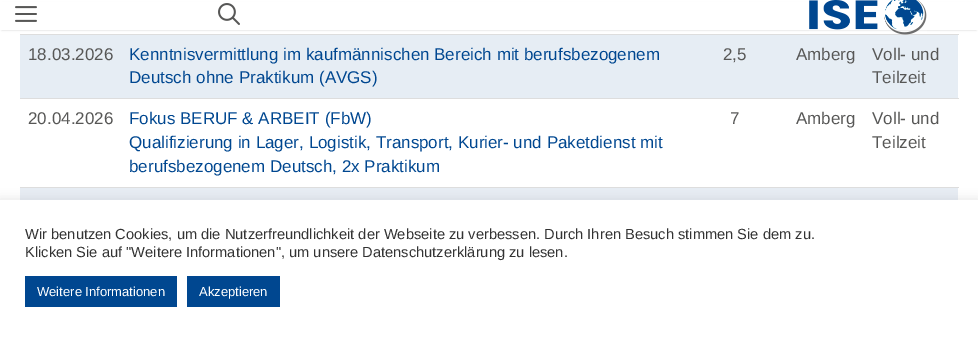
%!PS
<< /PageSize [978 337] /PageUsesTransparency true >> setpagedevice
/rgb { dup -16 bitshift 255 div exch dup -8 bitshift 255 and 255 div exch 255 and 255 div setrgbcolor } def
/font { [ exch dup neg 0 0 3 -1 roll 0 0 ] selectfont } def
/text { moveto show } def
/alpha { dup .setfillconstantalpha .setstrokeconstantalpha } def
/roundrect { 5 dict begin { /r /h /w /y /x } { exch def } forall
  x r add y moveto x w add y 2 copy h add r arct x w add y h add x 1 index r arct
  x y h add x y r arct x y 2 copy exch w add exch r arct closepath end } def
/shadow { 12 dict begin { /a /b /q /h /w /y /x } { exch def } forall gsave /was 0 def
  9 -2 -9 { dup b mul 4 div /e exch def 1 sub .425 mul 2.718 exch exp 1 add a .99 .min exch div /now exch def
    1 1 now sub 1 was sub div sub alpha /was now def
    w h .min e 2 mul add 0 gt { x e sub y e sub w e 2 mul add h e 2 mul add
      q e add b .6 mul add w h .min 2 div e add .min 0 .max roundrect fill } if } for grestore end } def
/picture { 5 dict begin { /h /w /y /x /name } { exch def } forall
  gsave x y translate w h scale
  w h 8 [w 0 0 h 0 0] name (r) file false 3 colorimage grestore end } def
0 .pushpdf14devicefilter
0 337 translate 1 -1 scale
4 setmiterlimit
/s1 { /LiberationSans-Regular 17 font 16#575756 rgb } def
/s2 { /LiberationSans-Regular 17 font 16#004790 rgb } def
/s3 { /LiberationSans-Regular 14.67 font 16#333333 rgb } def
/s4 { /LiberationSans-Regular 13 font 16#FFFFFF rgb } def
16#FFFFFF rgb
0 0 978 337 rectfill
16#000000 rgb
2 4 974 26 0 1 0.2 shadow
16#FFFFFF rgb
0 2 978 28 rectfill
(pic1.raw) 15 6 22 16 picture
(pic2.raw) 218 3 22 22 picture
16#DDDDDD rgb
20 34 939 1 rectfill
(pic3.raw) 809 0 118 35 picture
16#E6EDF4 rgb
20 35 938 63 rectfill
s1
(18.03.2026) 28 60 text
s2
(Kenntnisvermittlung im kaufmännischen Bereich mit berufsbezogenem) 129 60 text
(Deutsch ohne Praktikum \(AVGS\)) 129 83 text
s1
(2,5) 723 60 text
(Amberg) 796 60 text
(Voll- und) 872 60 text
(Teilzeit) 872 83 text
(20.04.2026) 28 124 text
s2
(Fokus BERUF & ARBEIT \(FbW\)) 129 124 text
(Qualifizierung in Lager, Logistik, Transport, Kurier- und Paketdienst mit) 129 148 text
(berufsbezogenem Deutsch, 2x Praktikum) 129 172 text
s1
(7) 730 124 text
(Amberg) 796 124 text
16#DDDDDD rgb
20 98 939 1 rectfill
s1
(Voll- und) 872 124 text
(Teilzeit) 872 148 text
16#DDDDDD rgb
20 187 939 1 rectfill
16#E6EDF4 rgb
20 188 938 12 rectfill
16#ACABAB rgb
0 199 978 137 0 5 0.3 shadow
16#FFFFFF rgb
0 200 978 137 rectfill
s3
(Wir benutzen Cookies, um die Nutzerfreundlichkeit der Webseite zu verbessen. Durch Ihren Besuch stimmen Sie dem zu.) 25 239 text
(Klicken Sie auf "Weitere Informationen", um unsere Datenschutzerklärung zu lesen.) 25 257 text
16#004790 rgb
25 276 152 31 rectfill
s4
(Weitere Informationen) 37 296 text
16#004790 rgb
187 276 93 31 rectfill
s4
(Akzeptieren) 199 296 text
.poppdf14devicefilter showpage
